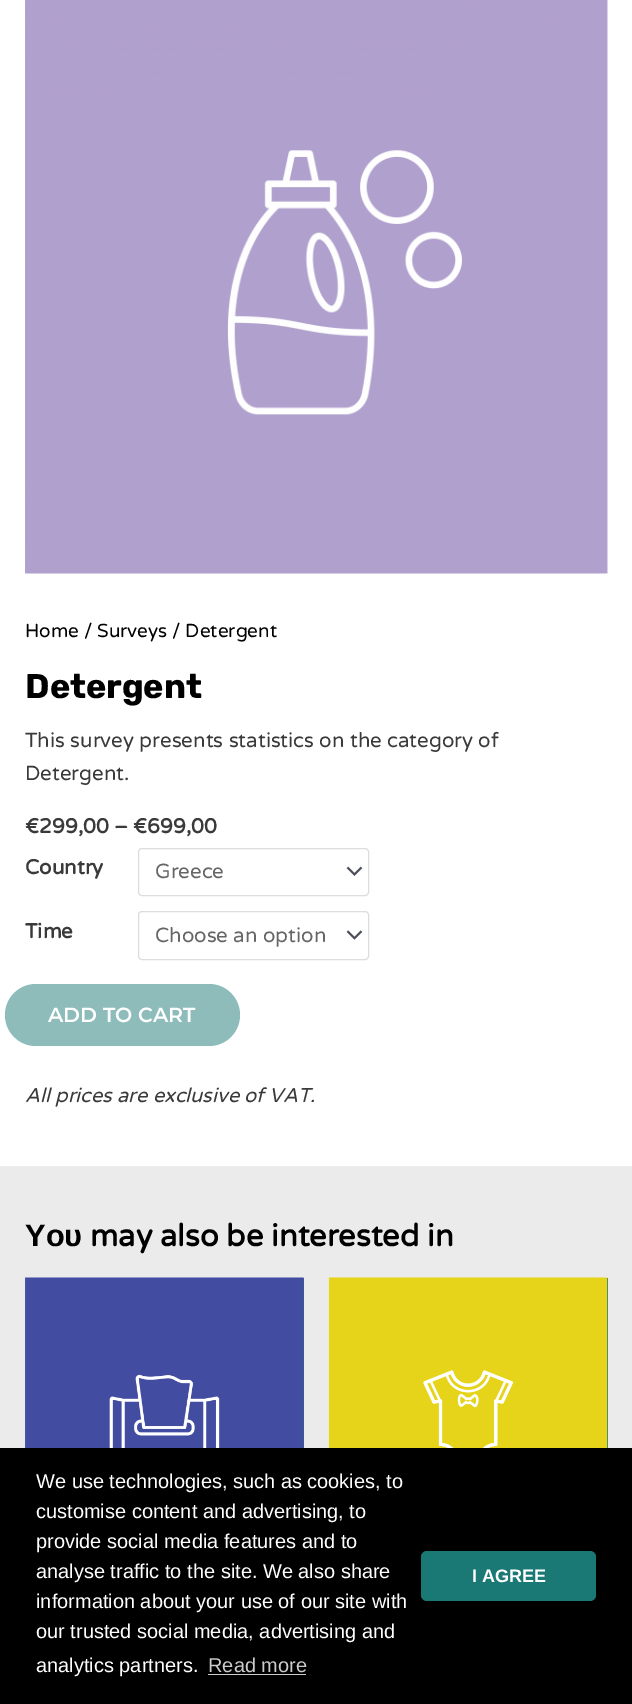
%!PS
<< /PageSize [632 1704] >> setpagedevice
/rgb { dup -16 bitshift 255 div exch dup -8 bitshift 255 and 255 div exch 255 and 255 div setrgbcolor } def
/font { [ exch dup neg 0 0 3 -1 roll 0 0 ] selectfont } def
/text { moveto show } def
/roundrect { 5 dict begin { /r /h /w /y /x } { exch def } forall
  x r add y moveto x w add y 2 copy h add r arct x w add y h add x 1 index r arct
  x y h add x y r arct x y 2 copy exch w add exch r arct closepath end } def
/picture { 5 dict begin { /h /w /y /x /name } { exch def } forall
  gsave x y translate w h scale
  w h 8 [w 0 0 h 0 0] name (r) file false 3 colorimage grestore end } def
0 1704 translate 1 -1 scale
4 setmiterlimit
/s1 { /VarelaRound-Regular 18.9 font 16#000000 rgb } def
/s2 { /Rubik-Light 34.25 font 16#000000 rgb } def
/s3 { /VarelaRound-Regular 20.5 font 16#3A3A3A rgb } def
/s4 { /VarelaRound-Bold 20.5 font 16#3A3A3A rgb } def
/s5 { /VarelaRound-Regular 20.5 font 16#666666 rgb } def
/s6 { /Montserrat-Thin 20.5 font 16#FFFFFF rgb } def
/s7 { /VarelaRound-Italic 20 font 16#3A3A3A rgb } def
/s8 { /LiberationSans-Bold 30.75 font 16#000000 rgb } def
/s9 { /VarelaRound-Bold 30.75 font 16#000000 rgb } def
/s10 { /LiberationSans-Regular 20 font 16#FFFFFF rgb } def
/s11 { /LiberationSans-Regular 20 font 16#CCCCCC rgb } def
/s12 { /LiberationSans-Bold 18 font 16#FFFFFF rgb } def
16#FFFFFF rgb
0 0 632 1704 rectfill
(pic1.raw) 25 0 583 574 picture
s1
(Home / Surveys / Detergent) 25 637 text
s2
(Detergent) 25 698 text
s3
(This survey presents statistics on the category of) 25 747 text
(Detergent.) 25 780 text
s4
(€299,00 – €699,00) 25 833 text
(Country) 25 874 text
(pic2.raw) 346 866 17 10 picture
16#DDDDDD rgb
138.5 848.5 230 47 3.5 roundrect stroke
s5
(Greece) 155 878 text
s4
(Time) 25 938 text
(pic3.raw) 346 930 17 10 picture
16#DDDDDD rgb
138.5 911.5 230 48 3.5 roundrect stroke
s5
(Choose an option) 155 942 text
16#8DBCBA rgb
5 984 235 62 31 roundrect fill
s6
(ADD TO CART) 48 1022 text
s7
(All prices are exclusive of VAT.) 25 1102 text
16#EBEBEB rgb
0 1166 632 282 rectfill
s8
(Υου) 25 1246 text
s9
(may also be interested in) 90 1246 text
16#1A7875 rgb
303 1278 1 170 rectfill
(pic4.raw) 25 1277 279 171 picture
607 1278 1 170 rectfill
(pic5.raw) 328 1277 280 171 picture
16#000000 rgb
0 1448 632 256 rectfill
s10
(We use technologies, such as cookies, to) 36 1488 text
(customise content and advertising, to) 36 1518 text
(provide social media features and to) 36 1548 text
(analyse traffic to the site. We also share) 36 1578 text
(information about your use of our site with) 36 1608 text
(our trusted social media, advertising and) 36 1638 text
(analytics partners.) 36 1672 text
s11
(Read more) 208 1672 text
208 1674 98 1 rectfill
16#1A7875 rgb
421 1551 175 50 6 roundrect fill
s12
(I AGREE) 472 1582 text
showpage
